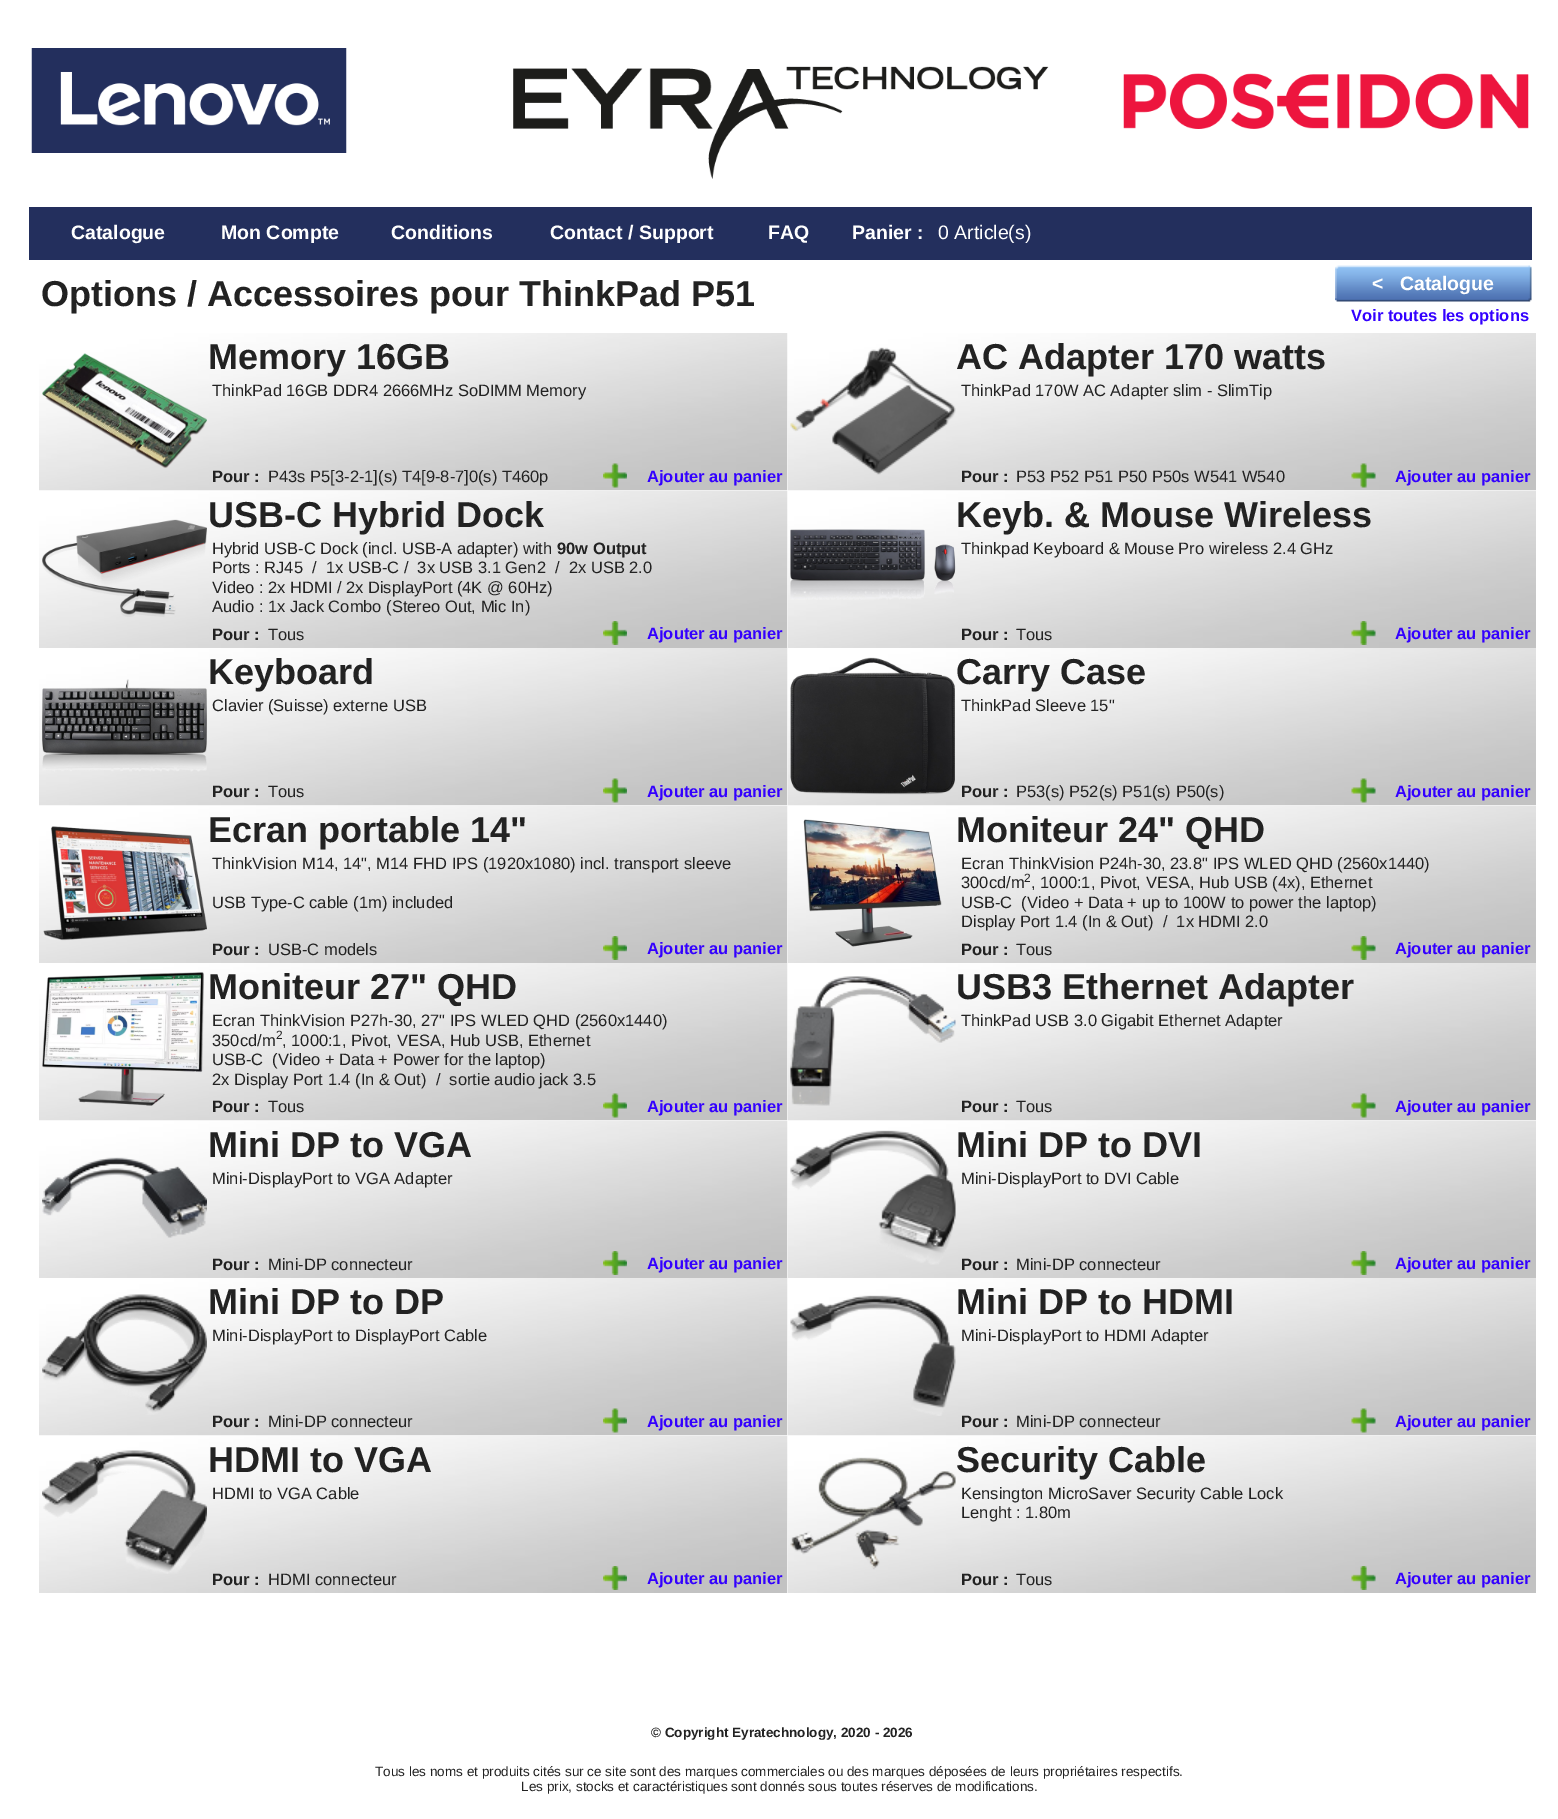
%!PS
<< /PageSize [1558 1819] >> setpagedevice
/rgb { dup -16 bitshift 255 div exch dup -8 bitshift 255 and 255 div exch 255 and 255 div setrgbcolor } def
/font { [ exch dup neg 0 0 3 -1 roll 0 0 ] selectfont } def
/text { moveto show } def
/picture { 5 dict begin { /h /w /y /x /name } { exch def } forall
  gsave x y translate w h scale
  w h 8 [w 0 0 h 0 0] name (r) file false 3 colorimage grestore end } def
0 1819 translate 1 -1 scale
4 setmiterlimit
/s1 { /LiberationSans-Bold 19.5 font 16#FFFFFF rgb } def
/s2 { /LiberationSans-Regular 19.5 font 16#FFFFFF rgb } def
/s3 { /LiberationSans-Bold 16.5 font 16#3300FF rgb } def
/s4 { /LiberationSans-Bold 36 font 16#222222 rgb } def
/s5 { /LiberationSans-Regular 16.5 font 16#222222 rgb } def
/s6 { /LiberationSans-Bold 16.5 font 16#222222 rgb } def
/s7 { /LiberationSans-Regular 12 font 16#222222 rgb } def
/s8 { /LiberationSans-Bold 13.5 font 16#222222 rgb } def
/s9 { /LiberationSans-Regular 13.5 font 16#222222 rgb } def
16#FFFFFF rgb
0 0 1558 1819 rectfill
(pic1.raw) 31 48 316 105 picture
(pic2.raw) 513 66 536 113 picture
(pic3.raw) 1123 73 406 56 picture
16#232F5D rgb
29 207 1503 53 rectfill
s1
(Catalogue) 71 239 text
(Mon Compte) 221 239 text
(Conditions) 391 239 text
(Contact / Support) 550 239 text
(FAQ) 768 239 text
(Panier :) 852 239 text
s2
(0 Article\(s\)) 938 239 text
(pic4.raw) 1335 265 197 37 picture
s1
(<   Catalogue) 1372 290 text
s3
(Voir toutes les options) 1351 321 text
s4
(Options / Accessoires pour ThinkPad P51) 41 306 text
(pic5.raw) 39 333 749 158 picture
(pic6.raw) 42 353 165 116 picture
(Memory 16GB) 208 369 text
s5
(ThinkPad 16GB DDR4 2666MHz SoDIMM Memory) 212 396 text
s6
(Pour :) 212 482 text
s5
(P43s P5[3-2-1]\(s\) T4[9-8-7]0\(s\) T460p) 268 482 text
(pic7.raw) 603 463 24 25 picture
s3
(Ajouter au panier) 647 482 text
(pic8.raw) 788 333 748 158 picture
(pic9.raw) 790 347 166 128 picture
s4
(AC Adapter 170 watts) 956 369 text
s5
(ThinkPad 170W AC Adapter slim - SlimTip) 961 396 text
s6
(Pour :) 961 482 text
s5
(P53 P52 P51 P50 P50s W541 W540) 1016 482 text
(pic10.raw) 1351 463 25 25 picture
s3
(Ajouter au panier) 1395 482 text
(pic11.raw) 39 491 749 157 picture
(pic12.raw) 42 519 165 98 picture
s4
(USB-C Hybrid Dock) 208 527 text
s5
(Hybrid USB-C Dock \(incl. USB-A adapter\) with) 212 554 text
s6
(90w Output) 557 554 text
s5
(Ports : RJ45  /  1x USB-C /  3x USB 3.1 Gen2  /  2x USB 2.0) 212 573 text
(Video : 2x HDMI / 2x DisplayPort \(4K @ 60Hz\)) 212 593 text
(Audio : 1x Jack Combo \(Stereo Out, Mic In\)) 212 612 text
s6
(Pour :) 212 640 text
s5
(Tous) 268 640 text
(pic13.raw) 603 621 24 24 picture
s3
(Ajouter au panier) 647 639 text
(pic14.raw) 788 491 748 157 picture
s4
(Keyb. & Mouse Wireless) 956 527 text
(pic15.raw) 790 529 166 71 picture
s5
(Thinkpad Keyboard & Mouse Pro wireless 2.4 GHz) 961 554 text
s6
(Pour :) 961 640 text
s5
(Tous) 1016 640 text
(pic16.raw) 1351 621 25 24 picture
s3
(Ajouter au panier) 1395 639 text
(pic5.raw) 39 648 749 158 picture
s4
(Keyboard) 208 684 text
(pic17.raw) 42 679 165 93 picture
s5
(Clavier \(Suisse\) externe USB) 212 711 text
s6
(Pour :) 212 797 text
s5
(Tous) 268 797 text
(pic7.raw) 603 778 24 25 picture
s3
(Ajouter au panier) 647 797 text
(pic8.raw) 788 648 748 158 picture
(pic18.raw) 790 657 165 138 picture
s4
(Carry Case) 956 684 text
s5
(ThinkPad Sleeve 15") 961 711 text
s6
(Pour :) 961 797 text
s5
(P53\(s\) P52\(s\) P51\(s\) P50\(s\)) 1016 797 text
(pic10.raw) 1351 778 25 25 picture
s3
(Ajouter au panier) 1395 797 text
(pic11.raw) 39 806 749 157 picture
(pic19.raw) 43 826 164 115 picture
s4
(Ecran portable 14") 208 842 text
s5
(ThinkVision M14, 14", M14 FHD IPS \(1920x1080\) incl. transport sleeve) 212 869 text
(USB Type-C cable \(1m\) included) 212 908 text
s6
(Pour :) 212 955 text
s5
(USB-C models) 268 955 text
(pic13.raw) 603 936 24 24 picture
s3
(Ajouter au panier) 647 954 text
(pic14.raw) 788 806 748 157 picture
(pic20.raw) 803 819 139 128 picture
s4
(Moniteur 24" QHD) 956 842 text
s5
(Ecran ThinkVision P24h-30, 23.8" IPS WLED QHD \(2560x1440\)) 961 869 text
(300cd/m) 961 888 text
s7
(2) 1024 882 text
s5
(, 1000:1, Pivot, VESA, Hub USB \(4x\), Ethernet) 1031 888 text
(USB-C  \(Video + Data + up to 100W to power the laptop\)) 961 908 text
(Display Port 1.4 \(In & Out\)  /  1x HDMI 2.0) 961 927 text
s6
(Pour :) 961 955 text
s5
(Tous) 1016 955 text
(pic16.raw) 1351 936 25 24 picture
s3
(Ajouter au panier) 1395 954 text
(pic5.raw) 39 963 749 158 picture
(pic21.raw) 42 972 162 134 picture
s4
(Moniteur 27" QHD) 208 999 text
s5
(Ecran ThinkVision P27h-30, 27" IPS WLED QHD \(2560x1440\)) 212 1026 text
(350cd/m) 212 1046 text
s7
(2) 276 1039 text
s5
(, 1000:1, Pivot, VESA, Hub USB, Ethernet) 282 1046 text
(USB-C  \(Video + Data + Power for the laptop\)) 212 1065 text
(2x Display Port 1.4 \(In & Out\)  /  sortie audio jack 3.5) 212 1085 text
s6
(Pour :) 212 1112 text
s5
(Tous) 268 1112 text
(pic7.raw) 603 1093 24 25 picture
s3
(Ajouter au panier) 647 1112 text
(pic8.raw) 788 963 748 158 picture
(pic22.raw) 790 976 166 130 picture
s4
(USB3 Ethernet Adapter) 956 999 text
s5
(ThinkPad USB 3.0 Gigabit Ethernet Adapter) 961 1026 text
s6
(Pour :) 961 1112 text
s5
(Tous) 1016 1112 text
(pic10.raw) 1351 1093 25 25 picture
s3
(Ajouter au panier) 1395 1112 text
(pic11.raw) 39 1121 749 157 picture
s4
(Mini DP to VGA) 208 1157 text
(pic23.raw) 42 1157 165 81 picture
s5
(Mini-DisplayPort to VGA Adapter) 212 1184 text
s6
(Pour :) 212 1270 text
s5
(Mini-DP connecteur) 268 1270 text
(pic13.raw) 603 1251 24 24 picture
s3
(Ajouter au panier) 647 1269 text
(pic14.raw) 788 1121 748 157 picture
(pic24.raw) 790 1130 166 135 picture
s4
(Mini DP to DVI) 956 1157 text
s5
(Mini-DisplayPort to DVI Cable) 961 1184 text
s6
(Pour :) 961 1270 text
s5
(Mini-DP connecteur) 1016 1270 text
(pic16.raw) 1351 1251 25 24 picture
s3
(Ajouter au panier) 1395 1269 text
(pic5.raw) 39 1278 749 158 picture
(pic25.raw) 42 1294 165 121 picture
s4
(Mini DP to DP) 208 1314 text
s5
(Mini-DisplayPort to DisplayPort Cable) 212 1341 text
s6
(Pour :) 212 1427 text
s5
(Mini-DP connecteur) 268 1427 text
(pic7.raw) 603 1408 24 25 picture
s3
(Ajouter au panier) 647 1427 text
(pic8.raw) 788 1278 748 158 picture
(pic26.raw) 790 1295 166 121 picture
s4
(Mini DP to HDMI) 956 1314 text
s5
(Mini-DisplayPort to HDMI Adapter) 961 1341 text
s6
(Pour :) 961 1427 text
s5
(Mini-DP connecteur) 1016 1427 text
(pic10.raw) 1351 1408 25 25 picture
s3
(Ajouter au panier) 1395 1427 text
(pic11.raw) 39 1436 749 157 picture
(pic27.raw) 42 1450 165 124 picture
s4
(HDMI to VGA) 208 1472 text
s5
(HDMI to VGA Cable) 212 1499 text
s6
(Pour :) 212 1585 text
s5
(HDMI connecteur) 268 1585 text
(pic13.raw) 603 1566 24 24 picture
s3
(Ajouter au panier) 647 1584 text
(pic14.raw) 788 1436 748 157 picture
(pic28.raw) 790 1457 166 113 picture
s4
(Security Cable) 956 1472 text
s5
(Kensington MicroSaver Security Cable Lock) 961 1499 text
(Lenght : 1.80m) 961 1518 text
s6
(Pour :) 961 1585 text
s5
(Tous) 1016 1585 text
(pic16.raw) 1351 1566 25 24 picture
s3
(Ajouter au panier) 1395 1584 text
s8
(© Copyright Eyratechnology, 2020 - 2026) 651 1737 text
s9
(Tous les noms et produits cités sur ce site sont des marques commerciales ou des marques déposées de leurs propriétaires respectifs.) 375 1776 text
(Les prix, stocks et caractéristiques sont donnés sous toutes réserves de modifications.) 521 1791 text
showpage
